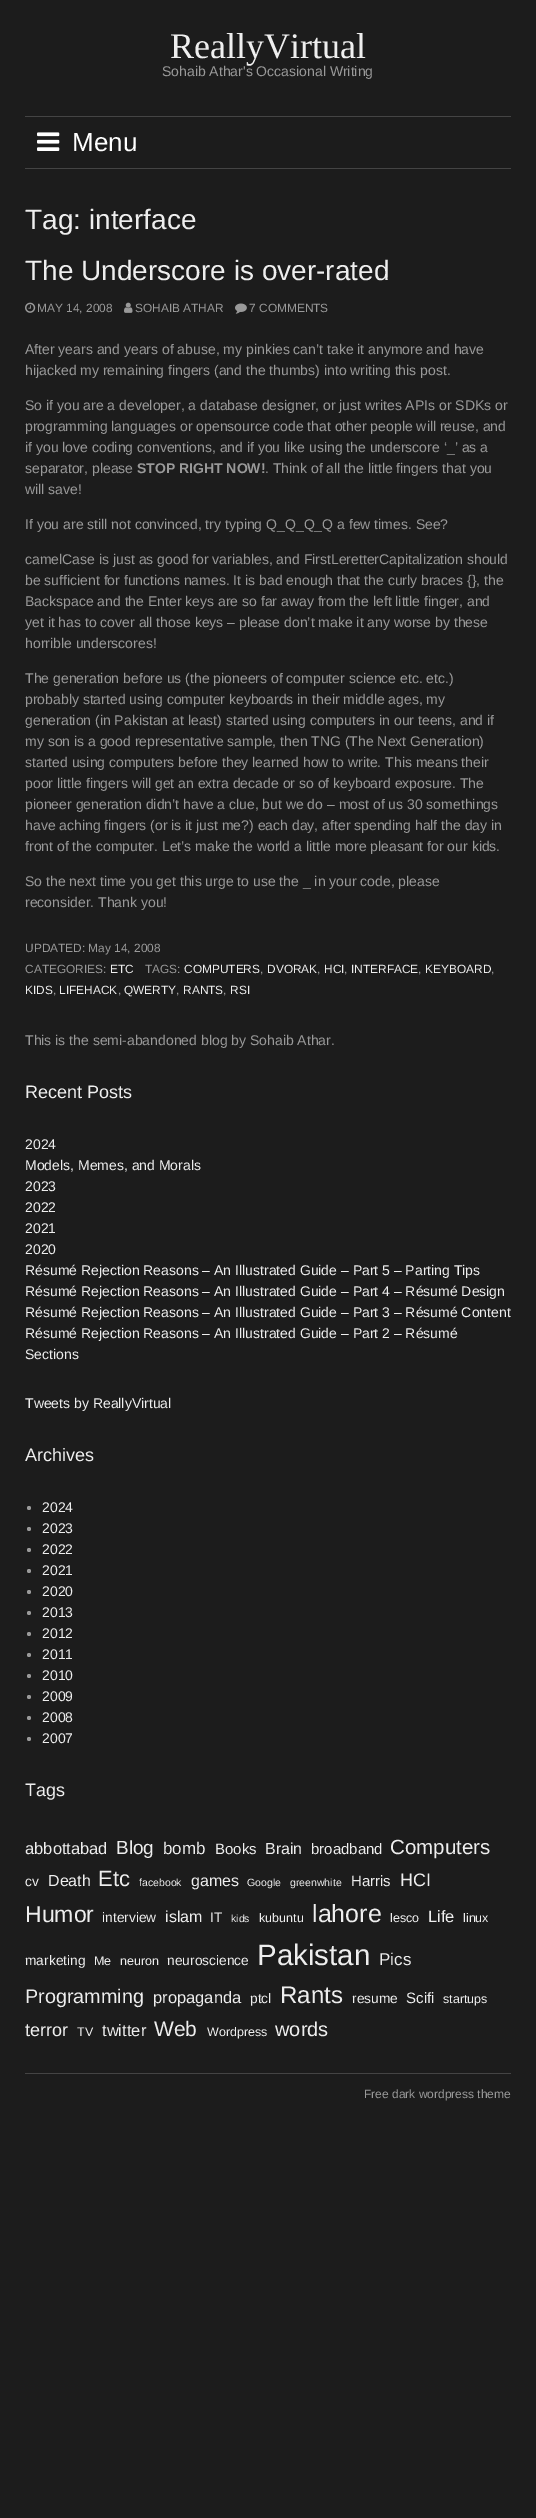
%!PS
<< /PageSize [536 2518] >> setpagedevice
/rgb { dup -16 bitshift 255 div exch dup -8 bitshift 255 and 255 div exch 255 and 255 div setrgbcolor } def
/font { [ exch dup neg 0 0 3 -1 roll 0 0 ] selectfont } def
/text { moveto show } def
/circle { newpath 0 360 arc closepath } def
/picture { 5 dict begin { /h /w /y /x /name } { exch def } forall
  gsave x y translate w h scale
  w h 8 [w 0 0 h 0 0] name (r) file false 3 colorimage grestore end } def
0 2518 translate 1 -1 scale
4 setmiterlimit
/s1 { /LiberationSerif-Regular 36 font 16#EEEEEE rgb } def
/s2 { /LiberationSans-Regular 14 font 16#999999 rgb } def
/s3 { /LiberationSans-Regular 26 font 16#FFFFFF rgb } def
/s4 { /LiberationSans-Regular 28 font 16#EEEEEE rgb } def
/s5 { /LiberationSans-Regular 11.9 font 16#999999 rgb } def
/s6 { /LiberationSans-Bold 14 font 16#999999 rgb } def
/s7 { /LiberationSans-Regular 11.9 font 16#EEEEEE rgb } def
/s8 { /LiberationSans-Regular 18 font 16#EEEEEE rgb } def
/s9 { /LiberationSans-Regular 14 font 16#EEEEEE rgb } def
/s10 { /LiberationSans-Regular 16.5 font 16#EEEEEE rgb } def
/s11 { /LiberationSans-Regular 19 font 16#EEEEEE rgb } def
/s12 { /LiberationSans-Regular 17 font 16#EEEEEE rgb } def
/s13 { /LiberationSans-Regular 15 font 16#EEEEEE rgb } def
/s14 { /LiberationSans-Regular 16 font 16#EEEEEE rgb } def
/s15 { /LiberationSans-Regular 20.5 font 16#EEEEEE rgb } def
/s16 { /LiberationSans-Regular 13.75 font 16#EEEEEE rgb } def
/s17 { /LiberationSans-Regular 22 font 16#EEEEEE rgb } def
/s18 { /LiberationSans-Regular 10.5 font 16#EEEEEE rgb } def
/s19 { /LiberationSans-Regular 23 font 16#EEEEEE rgb } def
/s20 { /LiberationSans-Regular 12.5 font 16#EEEEEE rgb } def
/s21 { /LiberationSans-Regular 25 font 16#EEEEEE rgb } def
/s22 { /LiberationSans-Regular 29.5 font 16#EEEEEE rgb } def
/s23 { /LiberationSans-Regular 19.75 font 16#EEEEEE rgb } def
/s24 { /LiberationSans-Regular 24 font 16#EEEEEE rgb } def
/s25 { /LiberationSans-Regular 21 font 16#EEEEEE rgb } def
/s26 { /LiberationSans-Regular 20 font 16#EEEEEE rgb } def
/s27 { /LiberationSans-Regular 12 font 16#999999 rgb } def
16#1C1C1C rgb
0 0 536 2518 rectfill
s1
(ReallyVirtual) 170 58 text
s2
(Sohaib Athar's Occasional Writing) 162 76 text
16#444444 rgb
25 116 486 1 rectfill
25 168 486 1 rectfill
(pic1.raw) 37 132 23 19 picture
s3
(Menu) 72 151 text
s4
(Tag: interface) 25 229 text
(The Underscore is over-rated) 25 280 text
(pic2.raw) 25 302 11 11 picture
s5
(MAY 14, 2008) 37 312 text
(pic3.raw) 124 302 9 11 picture
(SOHAIB ATHAR) 135 312 text
(pic4.raw) 235 303 12 11 picture
(7 COMMENTS) 249 312 text
s2
(After years and years of abuse, my pinkies can’t take it anymore and have) 25 354 text
(hijacked my remaining fingers \(and the thumbs\) into writing this post.) 25 375 text
(So if you are a developer, a database designer, or just writes APIs or SDKs or) 25 410 text
(programming languages or opensource code that other people will reuse, and) 25 431 text
(if you love coding conventions, and if you like using the underscore ‘_’ as a) 25 452 text
(separator, please) 25 473 text
s6
(STOP RIGHT NOW!) 137 473 text
s2
(. Think of all the little fingers that you) 265 473 text
(will save!) 25 494 text
(If you are still not convinced, try typing Q_Q_Q_Q a few times. See?) 25 529 text
(camelCase is just as good for variables, and FirstLeretterCapitalization should) 25 564 text
(be sufficient for functions names. It is bad enough that the curly braces {}, the) 25 585 text
(Backspace and the Enter keys are so far away from the left little finger, and) 25 606 text
(yet it has to cover all those keys – please don’t make it any worse by these) 25 627 text
(horrible underscores!) 25 648 text
(The generation before us \(the pioneers of computer science etc. etc.\)) 25 683 text
(probably started using computer keyboards in their middle ages, my) 25 704 text
(generation \(in Pakistan at least\) started using computers in our teens, and if) 25 725 text
(my son is a good representative sample, then TNG \(The Next Generation\)) 25 746 text
(started using computers before they learned how to write. This means their) 25 767 text
(poor little fingers will get an extra decade or so of keyboard exposure. The) 25 788 text
(pioneer generation didn’t have a clue, but we do – most of us 30 somethings) 25 809 text
(have aching fingers \(or is it just me?\) each day, after spending half the day in) 25 830 text
(front of the computer. Let’s make the world a little more pleasant for our kids.) 25 851 text
(So the next time you get this urge to use the _ in your code, please) 25 886 text
(reconsider. Thank you!) 25 907 text
s5
(UPDATED: May 14, 2008) 25 952 text
(CATEGORIES:) 25 973 text
s7
(ETC) 110 973 text
s5
(TAGS:) 145 973 text
s7
(COMPUTERS) 184 973 text
s5
(,) 260 973 text
s7
(DVORAK) 267 973 text
s5
(,) 317 973 text
s7
(HCI) 324 973 text
s5
(,) 344 973 text
s7
(INTERFACE) 351 973 text
s5
(,) 418 973 text
s7
(KEYBOARD) 425 973 text
s5
(,) 491 973 text
s7
(KIDS) 25 994 text
s5
(,) 53 994 text
s7
(LIFEHACK) 59 994 text
s5
(,) 118 994 text
s7
(QWERTY) 124 994 text
s5
(,) 176 994 text
s7
(RANTS) 183 994 text
s5
(,) 223 994 text
s7
(RSI) 230 994 text
s2
(This is the semi-abandoned blog by Sohaib Athar.) 25 1045 text
s8
(Recent Posts) 25 1098 text
s9
(2024) 25 1149 text
(Models, Memes, and Morals) 25 1170 text
(2023) 25 1191 text
(2022) 25 1212 text
(2021) 25 1233 text
(2020) 25 1254 text
(Résumé Rejection Reasons – An Illustrated Guide – Part 5 – Parting Tips) 25 1275 text
(Résumé Rejection Reasons – An Illustrated Guide – Part 4 – Résumé Design) 25 1296 text
(Résumé Rejection Reasons – An Illustrated Guide – Part 3 – Résumé Content) 25 1317 text
(Résumé Rejection Reasons – An Illustrated Guide – Part 2 – Résumé) 25 1338 text
(Sections) 25 1359 text
(Tweets by ReallyVirtual) 25 1408 text
s8
(Archives) 25 1461 text
16#999999 rgb
29 1508 2 circle fill
s9
(2024) 42 1512 text
16#999999 rgb
29 1529 2 circle fill
s9
(2023) 42 1533 text
16#999999 rgb
29 1550 2 circle fill
s9
(2022) 42 1554 text
16#999999 rgb
29 1571 2 circle fill
s9
(2021) 42 1575 text
16#999999 rgb
29 1592 2 circle fill
s9
(2020) 42 1596 text
16#999999 rgb
29 1613 2 circle fill
s9
(2013) 42 1617 text
16#999999 rgb
29 1634 2 circle fill
s9
(2012) 42 1638 text
16#999999 rgb
29 1655 2 circle fill
s9
(2011) 42 1659 text
16#999999 rgb
29 1676 2 circle fill
s9
(2010) 42 1680 text
16#999999 rgb
29 1697 2 circle fill
s9
(2009) 42 1701 text
16#999999 rgb
29 1718 2 circle fill
s9
(2008) 42 1722 text
16#999999 rgb
29 1739 2 circle fill
s9
(2007) 42 1743 text
s8
(Tags) 25 1796 text
s10
(abbottabad) 25 1854 text
s11
(Blog) 116 1854 text
s12
(bomb) 163 1854 text
s13
(Books) 215 1854 text
s14
(Brain) 265 1854 text
s13
(broadband) 311 1854 text
s15
(Computers) 390 1854 text
s16
(cv) 25 1886 text
s14
(Death) 48 1886 text
s17
(Etc) 98 1886 text
s18
(facebook) 139 1886 text
s14
(games) 191 1886 text
s18
(Google) 247 1886 text
(greenwhite) 290 1886 text
s13
(Harris) 351 1886 text
s8
(HCI) 400 1886 text
s19
(Humor) 25 1922 text
s16
(interview) 102 1922 text
s14
(islam) 165 1922 text
s16
(IT) 210 1922 text
s18
(kids) 231 1922 text
s20
(kubuntu) 259 1922 text
s21
(lahore) 312 1922 text
s20
(lesco) 390 1922 text
s10
(Life) 428 1922 text
s20
(linux) 463 1922 text
s16
(marketing) 25 1965 text
s20
(Me) 94 1965 text
(neuron) 120 1965 text
s16
(neuroscience) 167 1965 text
s22
(Pakistan) 257 1965 text
s12
(Pics) 379 1965 text
s23
(Programming) 25 2003 text
s10
(propaganda) 153 2003 text
s16
(ptcl) 250 2003 text
s24
(Rants) 280 2003 text
s16
(resume) 352 2003 text
s13
(Scifi) 406 2003 text
s20
(startups) 443 2003 text
s8
(terror) 25 2036 text
s20
(TV) 77 2036 text
s10
(twitter) 102 2036 text
s25
(Web) 154 2036 text
s20
(Wordpress) 207 2036 text
s26
(words) 275 2036 text
16#444444 rgb
25 2073 486 1 rectfill
s27
(Free dark wordpress theme) 364 2098 text
showpage
